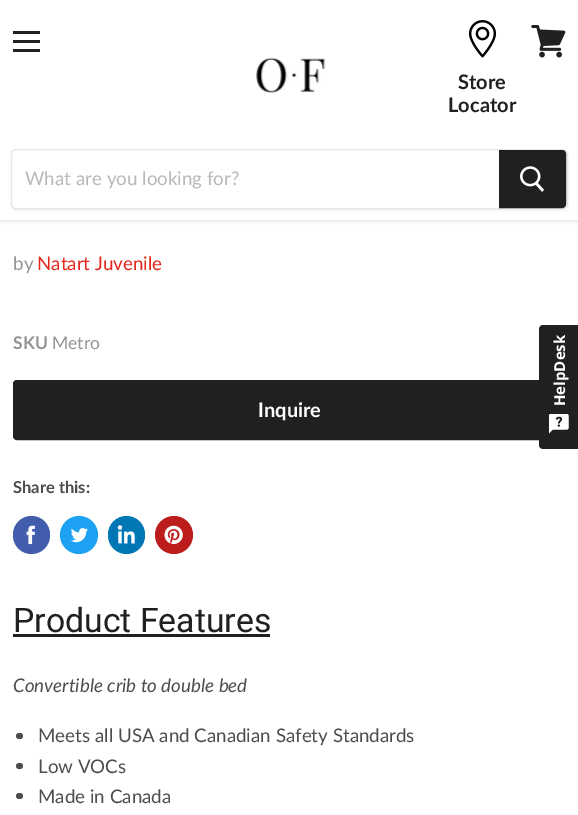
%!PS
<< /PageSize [578 815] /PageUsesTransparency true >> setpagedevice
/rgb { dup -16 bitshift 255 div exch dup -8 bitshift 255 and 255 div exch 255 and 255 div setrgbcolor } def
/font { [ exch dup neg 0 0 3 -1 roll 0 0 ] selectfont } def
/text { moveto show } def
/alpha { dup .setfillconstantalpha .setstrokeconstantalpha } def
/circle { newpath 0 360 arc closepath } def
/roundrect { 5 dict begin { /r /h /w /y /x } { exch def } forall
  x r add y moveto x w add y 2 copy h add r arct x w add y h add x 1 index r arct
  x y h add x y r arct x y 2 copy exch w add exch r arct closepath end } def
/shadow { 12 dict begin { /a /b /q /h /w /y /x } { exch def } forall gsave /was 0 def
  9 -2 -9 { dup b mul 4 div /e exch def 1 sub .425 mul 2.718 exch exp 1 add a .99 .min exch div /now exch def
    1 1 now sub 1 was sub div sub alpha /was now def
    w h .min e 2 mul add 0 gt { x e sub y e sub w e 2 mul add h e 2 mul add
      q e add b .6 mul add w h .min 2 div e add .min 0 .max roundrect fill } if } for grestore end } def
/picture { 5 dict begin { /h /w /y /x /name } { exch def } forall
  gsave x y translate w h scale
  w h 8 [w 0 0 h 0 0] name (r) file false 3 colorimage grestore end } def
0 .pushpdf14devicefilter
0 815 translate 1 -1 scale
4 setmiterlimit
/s1 { /Lato-Bold 20 font 16#202020 rgb } def
/s2 { /Lato-Regular 18.75 font 16#B8B8B8 rgb } def
/s3 { /Lato-Regular 18.75 font 16#949494 rgb } def
/s4 { /Lato-Regular 18.75 font 16#E32619 rgb } def
/s5 { /Lato-Bold 17.5 font 16#949494 rgb } def
/s6 { /Lato-Regular 17.5 font 16#949494 rgb } def
/s7 { /Lato-Bold 20 font 16#FFFFFF rgb } def
/s8 { /Lato-Bold 16.5 font 16#4D4D4D rgb } def
/s9 { /Roboto-Regular 33.75 font 16#202020 rgb } def
/s10 { /Lato-Italic 18.75 font 16#4D4D4D rgb } def
/s11 { /Lato-Regular 18.75 font 16#4D4D4D rgb } def
16#FFFFFF rgb
0 0 578 815 rectfill
16#808080 rgb
0 1 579 220 0 2.5 0.25 shadow
16#FFFFFF rgb
0 0 578 220 rectfill
16#202020 rgb
13 31 27 3 rectfill
13 40 27 3 rectfill
13 49 27 3 rectfill
(pic1.raw) 531 25 35 33 picture
(pic2.raw) 468 20 29 38 picture
s1
(Store) 458 89 text
(Locator) 448 112 text
(pic3.raw) 256 57 70 36 picture
gsave
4 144 moveto 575 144 lineto 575 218 lineto 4 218 lineto closepath 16 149 moveto 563 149 lineto 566 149 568 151 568 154 curveto 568 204 lineto 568 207 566 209 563 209 curveto 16 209 lineto 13 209 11 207 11 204 curveto 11 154 lineto 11 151 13 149 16 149 curveto closepath eoclip newpath
16#808080 rgb
11 151 557 60 5 2 0.11 shadow
grestore
0.2 alpha
16#808080 rgb
11.5 149.5 556 59 4.5 roundrect stroke
1 alpha
s2
(What are you looking for?) 25 185 text
16#202020 rgb
499.5 150.5 moveto 562 150.5 lineto 564 150.5 565.5 152 565.5 154 curveto 565.5 204 lineto 565.5 206 564 207.5 562 207.5 curveto 499.5 207.5 lineto closepath gsave fill grestore
stroke
(pic4.raw) 520 166 25 26 picture
s3
(by) 13 270 text
s4
(Natart Juvenile) 37 270 text
s5
(SKU) 13 349 text
s6
(Metro) 52 349 text
16#202020 rgb
13.5 380.5 552 59 3.5 roundrect gsave fill grestore
stroke
s7
(Inquire) 258 417 text
s8
(Share this:) 13 493 text
16#425DAB rgb
13 516 37 38 18.5 roundrect fill
(pic5.raw) 26 525 9 20 picture
16#1DA1F2 rgb
79 535 19 circle fill
(pic6.raw) 70 528 18 15 picture
16#0077B5 rgb
108 516 37 38 18.5 roundrect fill
(pic7.raw) 117 525 18 19 picture
16#BD1C1C rgb
174 535 19 circle fill
(pic8.raw) 164 525 19 20 picture
s9
(Product Features) 13 632 text
13 634 257 3 rectfill
s10
(Convertible crib to double bed) 13 692 text
16 733 7 6 3 roundrect fill
s11
(Meets all USA and Canadian Safety Standards) 38 742 text
16 763 7 6 3 roundrect fill
(Low VOCs) 38 773 text
16 793 7 6 3 roundrect fill
(Made in Canada) 38 803 text
16#202020 rgb
543 325 moveto 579 325 lineto 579 449 lineto 543 449 lineto 541 449 539 447 539 445 curveto 539 329 lineto 539 327 541 325 543 325 curveto closepath fill
/OpenSans-Bold 15 font
16#FFFFFF rgb
gsave 565 406 translate -90 rotate 0 0 moveto (HelpDesk) show grestore
(pic9.raw) 549 414 20 20 picture
.poppdf14devicefilter showpage
